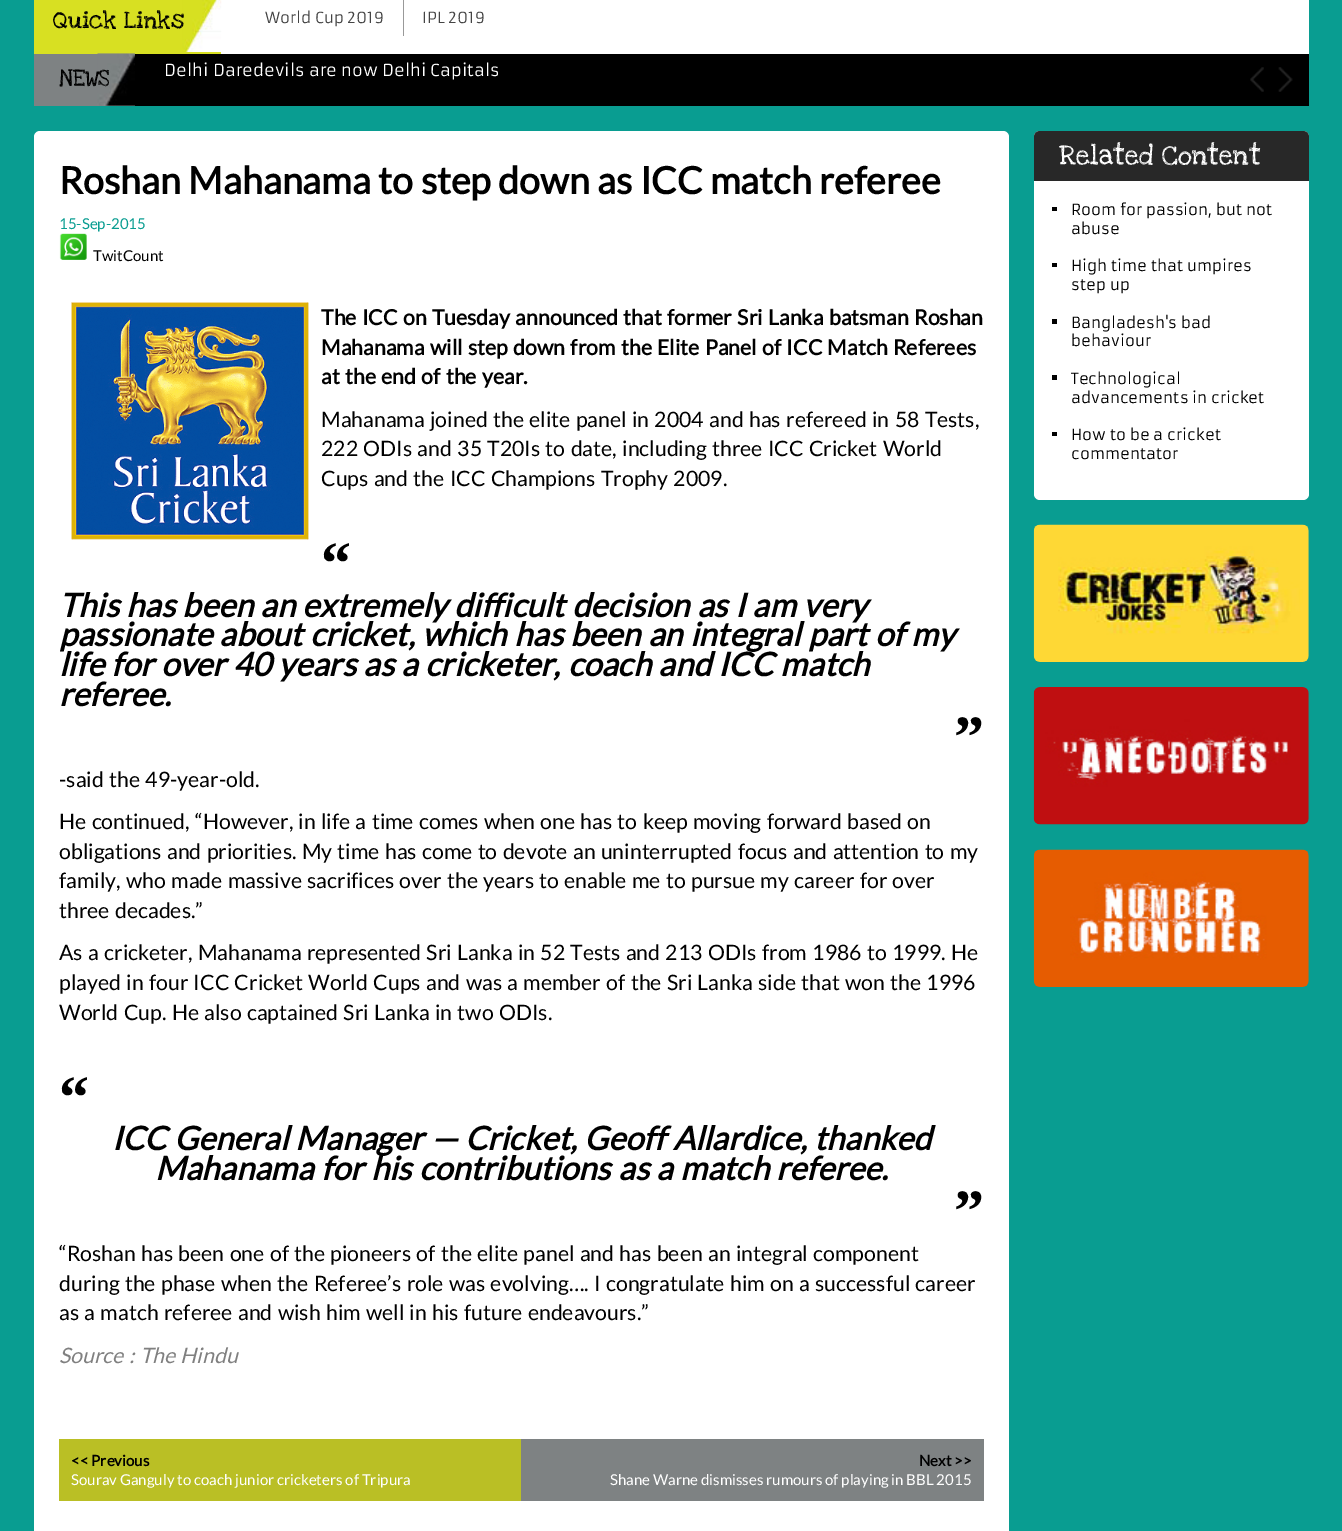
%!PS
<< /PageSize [1342 1531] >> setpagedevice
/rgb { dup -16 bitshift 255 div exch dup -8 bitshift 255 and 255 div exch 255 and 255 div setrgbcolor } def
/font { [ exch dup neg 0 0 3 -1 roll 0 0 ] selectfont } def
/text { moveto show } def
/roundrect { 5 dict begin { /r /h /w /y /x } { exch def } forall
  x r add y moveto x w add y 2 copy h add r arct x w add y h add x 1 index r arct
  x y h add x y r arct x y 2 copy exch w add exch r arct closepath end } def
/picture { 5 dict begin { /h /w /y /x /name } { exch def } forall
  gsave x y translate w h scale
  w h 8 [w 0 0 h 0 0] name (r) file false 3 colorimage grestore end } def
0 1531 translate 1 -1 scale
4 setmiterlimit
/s1 { /LoveYaLikeASister-Regular 17.5 font 16#000000 rgb } def
/s2 { /Armata-Regular 15 font 16#444444 rgb } def
/s3 { /Armata-Regular 16.25 font 16#FFFFFF rgb } def
/s4 { /Lato-Bold 37.5 font 16#000000 rgb } def
/s5 { /Lato-Regular 15 font 16#099D91 rgb } def
/s6 { /Lato-Regular 15 font 16#000000 rgb } def
/s7 { /LiberationSerif-Bold 60 font 16#000000 rgb } def
/s8 { /Lato-BoldItalic 32.5 font 16#000000 rgb } def
/s9 { /Lato-Bold 15 font 16#000000 rgb } def
/s10 { /Lato-Regular 15 font 16#FFFFFF rgb } def
/s11 { /LoveYaLikeASister-Regular 20 font 16#FFFFFF rgb } def
/s12 { /Armata-Regular 15 font 16#000000 rgb } def
16#099D91 rgb
0 0 1342 1531 rectfill
16#FFFFFF rgb
221 0 1088 54 rectfill
16#D8E022 rgb
34 0 187 54 rectfill
(pic1.raw) 182 0 40 52 picture
s1
(Quick Links) 53 28 text
16#999999 rgb
403 0 1 36 rectfill
s2
(World Cup 2019) 265 23 text
(IPL 2019) 422 23 text
16#000000 rgb
135 54 1174 52 rectfill
16#7E8283 rgb
34 54 101 52 rectfill
(pic2.raw) 97 53 38 53 picture
s1
(NEWS) 59 86 text
s3
(Delhi Daredevils are now Delhi Capitals) 164 76 text
(pic3.raw) 1250 67 14 25 picture
(pic4.raw) 1278 67 15 25 picture
34 131 975 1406 6 roundrect fill
s4
(Roshan Mahanama to step down as ICC match referee) 59 194 text
s5
(15-Sep-2015) 59 229 text
(pic5.raw) 59 233 28 27 picture
s6
(TwitCount) 93 261 text
(pic6.raw) 71 302 238 238 picture
/Lato-Bold 21.25 font
321 325 moveto 1.25 0 32 (The ICC on Tuesday announced that former Sri Lanka batsman Roshan) widthshow
321 355 moveto 1.25 0 32 (Mahanama will step down from the Elite Panel of ICC Match Referees) widthshow
321 384 moveto 1.25 0 32 (at the end of the year.) widthshow
/Lato-Regular 21.25 font
321 427 moveto 1.25 0 32 (Mahanama joined the elite panel in 2004 and has refereed in 58 Tests,) widthshow
321 456 moveto 1.25 0 32 (222 ODIs and 35 T20Is to date, including three ICC Cricket World) widthshow
321 486 moveto 1.25 0 32 (Cups and the ICC Champions Trophy 2009.) widthshow
s7
(“) 321 583 text
/Lato-BoldItalic 32.5 font
59 617 moveto 1.25 0 32 (This has been an extremely difficult decision as I am very) widthshow
59 646 moveto 1.25 0 32 (passionate about cricket, which has been an integral part of my) widthshow
59 676 moveto 1.25 0 32 (life for over 40 years as a cricketer, coach and ICC match) widthshow
(referee.) 59 706 text
s7
(”) 954 757 text
/Lato-Regular 21.25 font
59 787 moveto 1.25 0 32 (-said the 49-year-old.) widthshow
59 829 moveto 1.25 0 32 (He continued, “However, in life a time comes when one has to keep moving forward based on) widthshow
59 859 moveto 1.25 0 32 (obligations and priorities. My time has come to devote an uninterrupted focus and attention to my) widthshow
59 888 moveto 1.25 0 32 (family, who made massive sacrifices over the years to enable me to pursue my career for over) widthshow
59 918 moveto 1.25 0 32 (three decades.”) widthshow
59 960 moveto 1.25 0 32 (As a cricketer, Mahanama represented Sri Lanka in 52 Tests and 213 ODIs from 1986 to 1999. He) widthshow
59 990 moveto 1.25 0 32 (played in four ICC Cricket World Cups and was a member of the Sri Lanka side that won the 1996) widthshow
59 1020 moveto 1.25 0 32 (World Cup. He also captained Sri Lanka in two ODIs.) widthshow
s7
(“) 59 1117 text
/Lato-BoldItalic 32.5 font
112 1150 moveto 1.25 0 32 (ICC General Manager — Cricket, Geoff Allardice, thanked) widthshow
155 1180 moveto 1.25 0 32 (Mahanama for his contributions as a match referee.) widthshow
s7
(”) 954 1231 text
/Lato-Regular 21.25 font
59 1261 moveto 1.25 0 32 (“Roshan has been one of the pioneers of the elite panel and has been an integral component) widthshow
59 1291 moveto 1.25 0 32 (during the phase when the Referee’s role was evolving…. I congratulate him on a successful career) widthshow
59 1320 moveto 1.25 0 32 (as a match referee and wish him well in his future endeavours.”) widthshow
/Lato-Italic 21.25 font
16#808080 rgb
59 1363 moveto 1.25 0 32 (Source : The Hindu) widthshow
16#BABF25 rgb
59 1439 462 62 rectfill
s9
(<< Previous) 71 1466 text
s10
(Sourav Ganguly to coach junior cricketers of Tripura) 71 1485 text
16#7E8283 rgb
521 1439 463 62 rectfill
s9
(Next >>) 919 1466 text
s10
(Shane Warne dismisses rumours of playing in BBL 2015) 610 1485 text
1034 131 275 369 6 roundrect fill
16#282828 rgb
1040 131 moveto 1303 131 lineto 1306.5 131 1309 133.5 1309 137 curveto 1309 181 lineto 1034 181 lineto 1034 137 lineto 1034 133.5 1036.5 131 1040 131 curveto closepath fill
s11
(Related Content) 1059 164 text
16#000000 rgb
1052 207 5 4 rectfill
s12
(Room for passion, but not) 1071 215 text
(abuse) 1071 234 text
1052 263 5 4 rectfill
(High time that umpires) 1071 271 text
(step up) 1071 290 text
1052 319 5 5 rectfill
(Bangladesh's bad) 1071 328 text
(behaviour) 1071 346 text
1052 375 5 5 rectfill
(Technological) 1071 384 text
(advancements in cricket) 1071 403 text
1052 432 5 4 rectfill
(How to be a cricket) 1071 440 text
(commentator) 1071 459 text
(pic7.raw) 1033 524 276 138 picture
(pic8.raw) 1033 687 276 138 picture
(pic9.raw) 1033 849 276 138 picture
showpage
